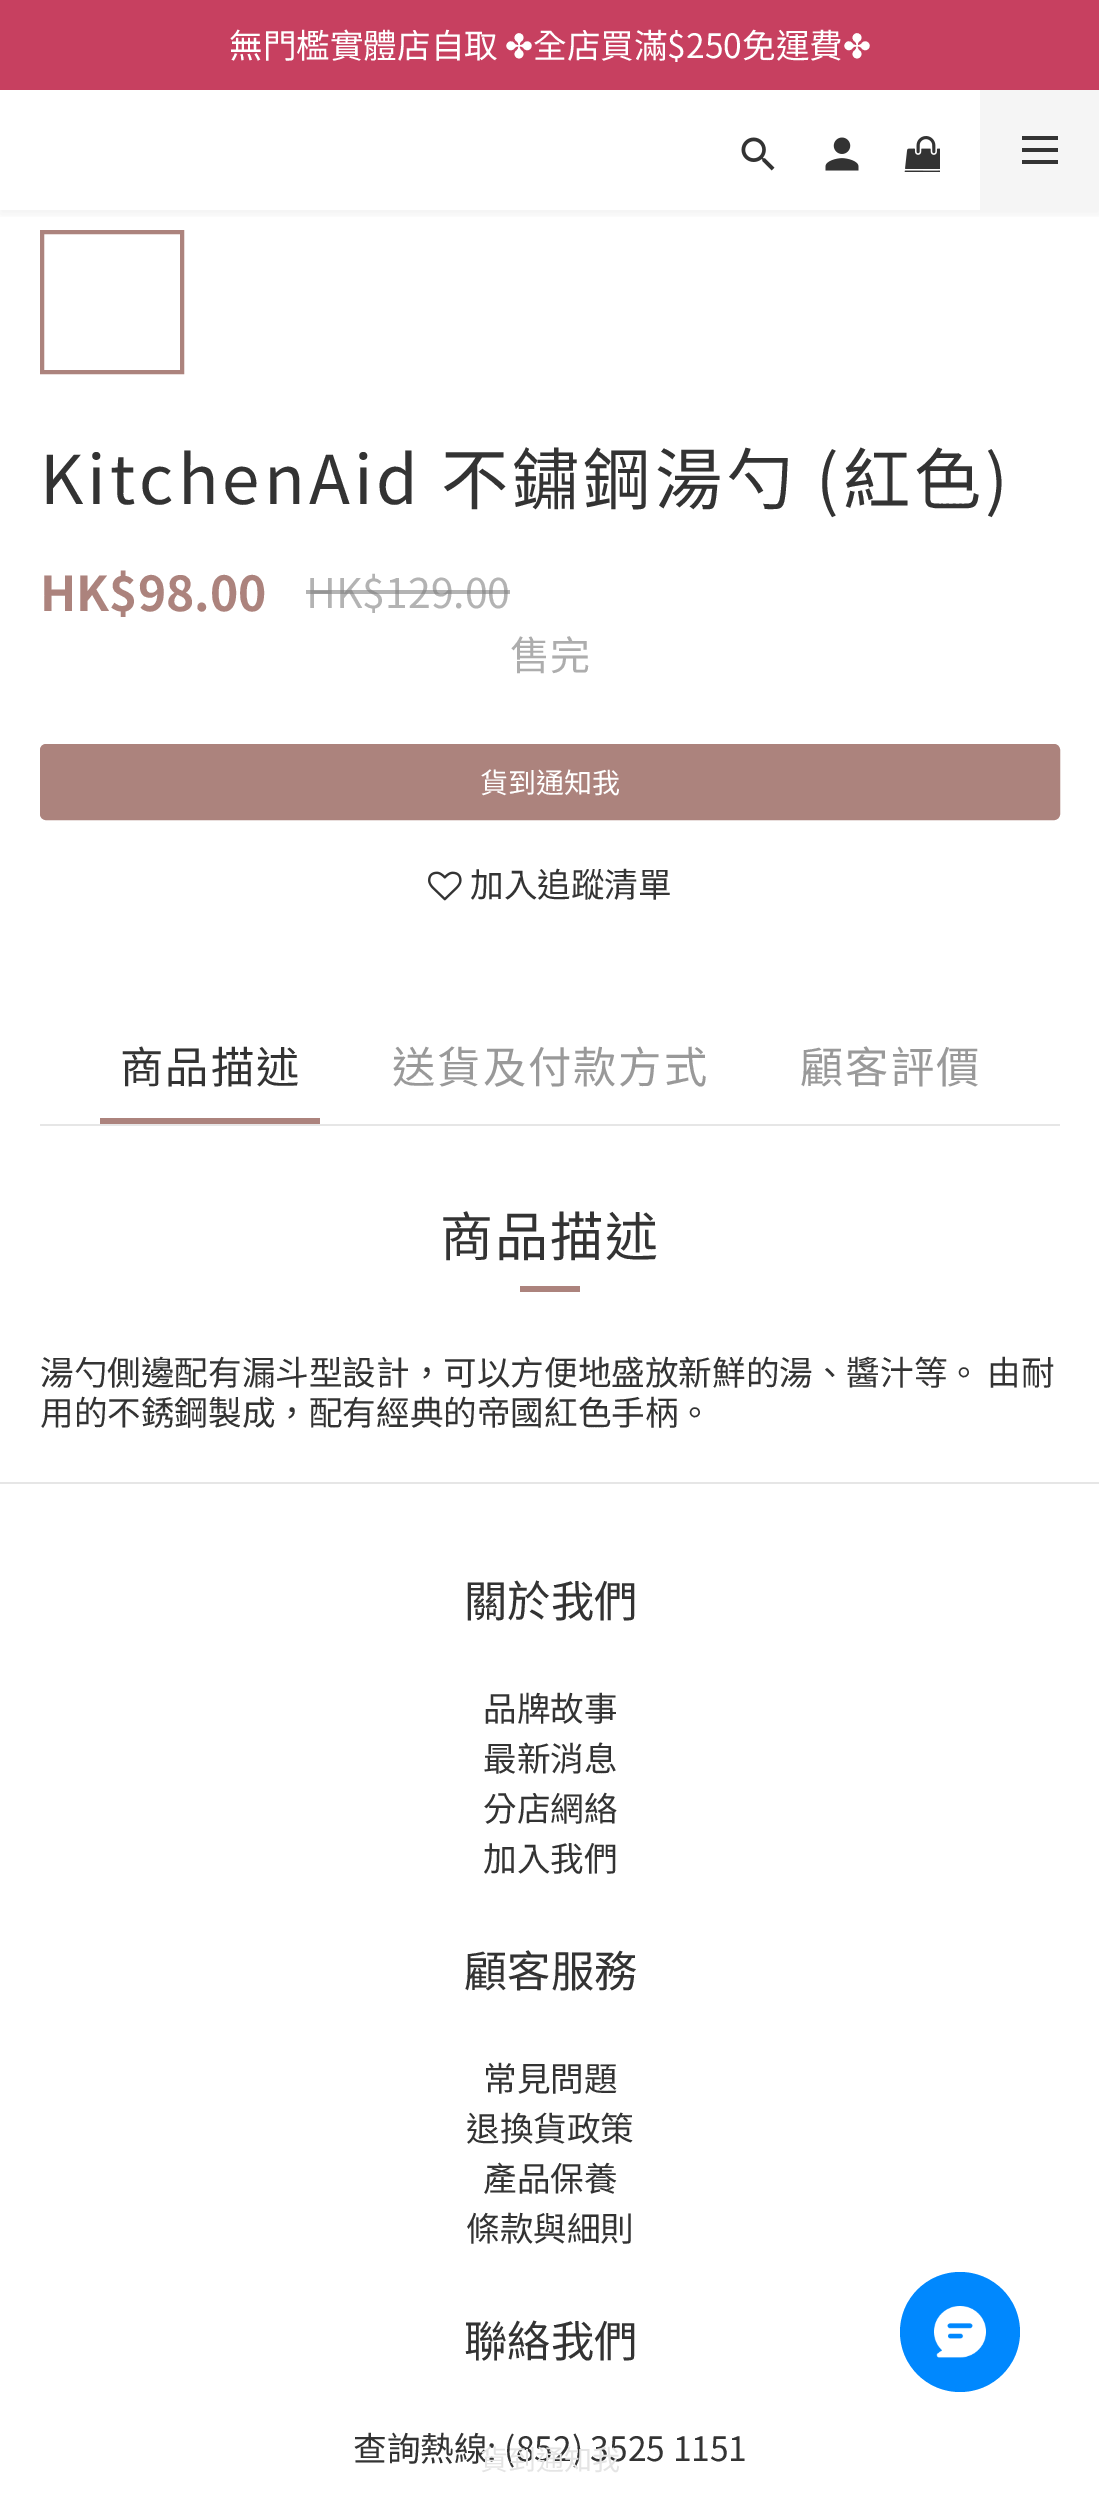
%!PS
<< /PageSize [1099 2504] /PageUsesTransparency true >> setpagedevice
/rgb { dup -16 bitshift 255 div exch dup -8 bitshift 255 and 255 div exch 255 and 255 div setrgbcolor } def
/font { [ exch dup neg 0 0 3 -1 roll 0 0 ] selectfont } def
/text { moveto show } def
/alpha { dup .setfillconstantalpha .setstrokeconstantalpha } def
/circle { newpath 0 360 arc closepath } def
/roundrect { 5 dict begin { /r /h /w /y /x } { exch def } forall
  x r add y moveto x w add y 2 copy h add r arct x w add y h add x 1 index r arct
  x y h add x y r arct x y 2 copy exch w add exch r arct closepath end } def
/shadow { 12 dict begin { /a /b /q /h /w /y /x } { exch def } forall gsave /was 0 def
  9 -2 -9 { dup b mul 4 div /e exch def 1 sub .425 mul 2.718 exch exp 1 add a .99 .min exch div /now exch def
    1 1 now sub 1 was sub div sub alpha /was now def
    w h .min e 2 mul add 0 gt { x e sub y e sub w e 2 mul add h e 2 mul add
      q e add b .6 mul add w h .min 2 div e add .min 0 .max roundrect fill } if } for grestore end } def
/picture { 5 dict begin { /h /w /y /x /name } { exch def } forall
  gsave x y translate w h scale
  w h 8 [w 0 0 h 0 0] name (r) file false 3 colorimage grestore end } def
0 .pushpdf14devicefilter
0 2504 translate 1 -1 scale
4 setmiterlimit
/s1 { /NotoSansTC-Regular 33.6 font 16#FFFFFF rgb } def
/s2 { /DejaVuSans-Regular 33.6 font 16#FFFFFF rgb } def
/s3 { /NotoSansTC-Bold 48 font 16#AC837D rgb } def
/s4 { /NotoSansTC-Regular 41 font 16#B3B3B3 rgb } def
/s5 { /NotoSansTC-Regular 40 font 16#ADADAD rgb } def
/s6 { /NotoSansTC-Regular 28 font 16#FFFFFF rgb } def
/s7 { /NotoSansTC-Regular 33.6 font 16#333333 rgb } def
/s8 { /NotoSansTC-Regular 28 font 16#E4E4E4 rgb } def
/s9 { /NotoSansTC-Regular 43.25 font 16#333333 rgb } def
16#FFFFFF rgb
0 0 1099 2504 rectfill
16#C74060 rgb
0 0 1099 90 rectfill
s1
(無門檻實體店自取) 229 58 text
s2
(✤) 505 58 text
s1
(全店買滿$250免運費) 533 58 text
s2
(✤) 843 58 text
16#AC837D rgb
4 setlinewidth
42 232 140 140 rectstroke
gsave
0 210 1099 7 rectclip
16#000000 rgb
0 94 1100 120 0 6 0.06 shadow
grestore
(pic1.raw) 741 137 34 34 picture
(pic2.raw) 825 137 34 34 picture
(pic3.raw) 904 136 36 36 picture
16#F5F5F5 rgb
980 90 119 120 rectfill
16#333333 rgb
1022 148 36 4 rectfill
1022 136 36 4 rectfill
1022 160 36 4 rectfill
/NotoSansTC-Regular 67.25 font
40 504 moveto 4 0 (KitchenAid 不鏽鋼湯勺 \(紅色\)) ashow
s3
(HK$98.00) 40 611 text
s4
(HK$129.00) 306 608 text
0.6 alpha
16#808080 rgb
306 590 204 4 rectfill
1 alpha
s5
(售完) 510 670 text
16#AC837D rgb
41 745 1018 74 5 roundrect gsave fill grestore
2 setlinewidth
stroke
s6
(貨到通知我) 480 793 text
(pic4.raw) 428 871 34 30 picture
s7
(加入追蹤清單) 470 897 text
16#E6E6E6 rgb
40 1124 1020 2 rectfill
/NotoSansTC-Regular 43.25 font
16#333333 rgb
120 1083 moveto 2 0 (商品描述) ashow
16#AC837D rgb
100 1118 220 6 rectfill
16#999999 rgb
392 1083 moveto 2 0 (送貨及付款方式) ashow
800 1083 moveto 2 0 (顧客評價) ashow
/NotoSansTC-Regular 53 font
16#333333 rgb
440 1256 moveto 2 0 (商品描述) ashow
16#AC837D rgb
520 1286 60 6 rectfill
/NotoSansTC-Regular 33.6 font
16#333333 rgb
40 1385 moveto -1 0 32 (湯勺側邊配有漏斗型設計，可以方便地盛放新鮮的湯、醬汁等。 由耐) widthshow
(用的不銹鋼製成，配有經典的帝國紅色手柄。) 40 1425 text
(查詢熱線: \(852\) 3525 1151) 353 2461 text
s8
(貨到通知我) 480 2470 text
16#E6E6E6 rgb
0 1482 1099 2 rectfill
s9
(關於我們) 464 1617 text
s7
(品牌故事) 483 1721 text
(最新消息) 483 1771 text
(分店網絡) 483 1821 text
(加入我們) 483 1871 text
s9
(顧客服務) 464 1987 text
s7
(常見問題) 483 2091 text
(退換貨政策) 466 2141 text
(產品保養) 483 2191 text
(條款與細則) 466 2241 text
s9
(聯絡我們) 464 2357 text
16#0088FE rgb
960 2332 60 circle fill
(pic5.raw) 934 2306 52 52 picture
.poppdf14devicefilter showpage
